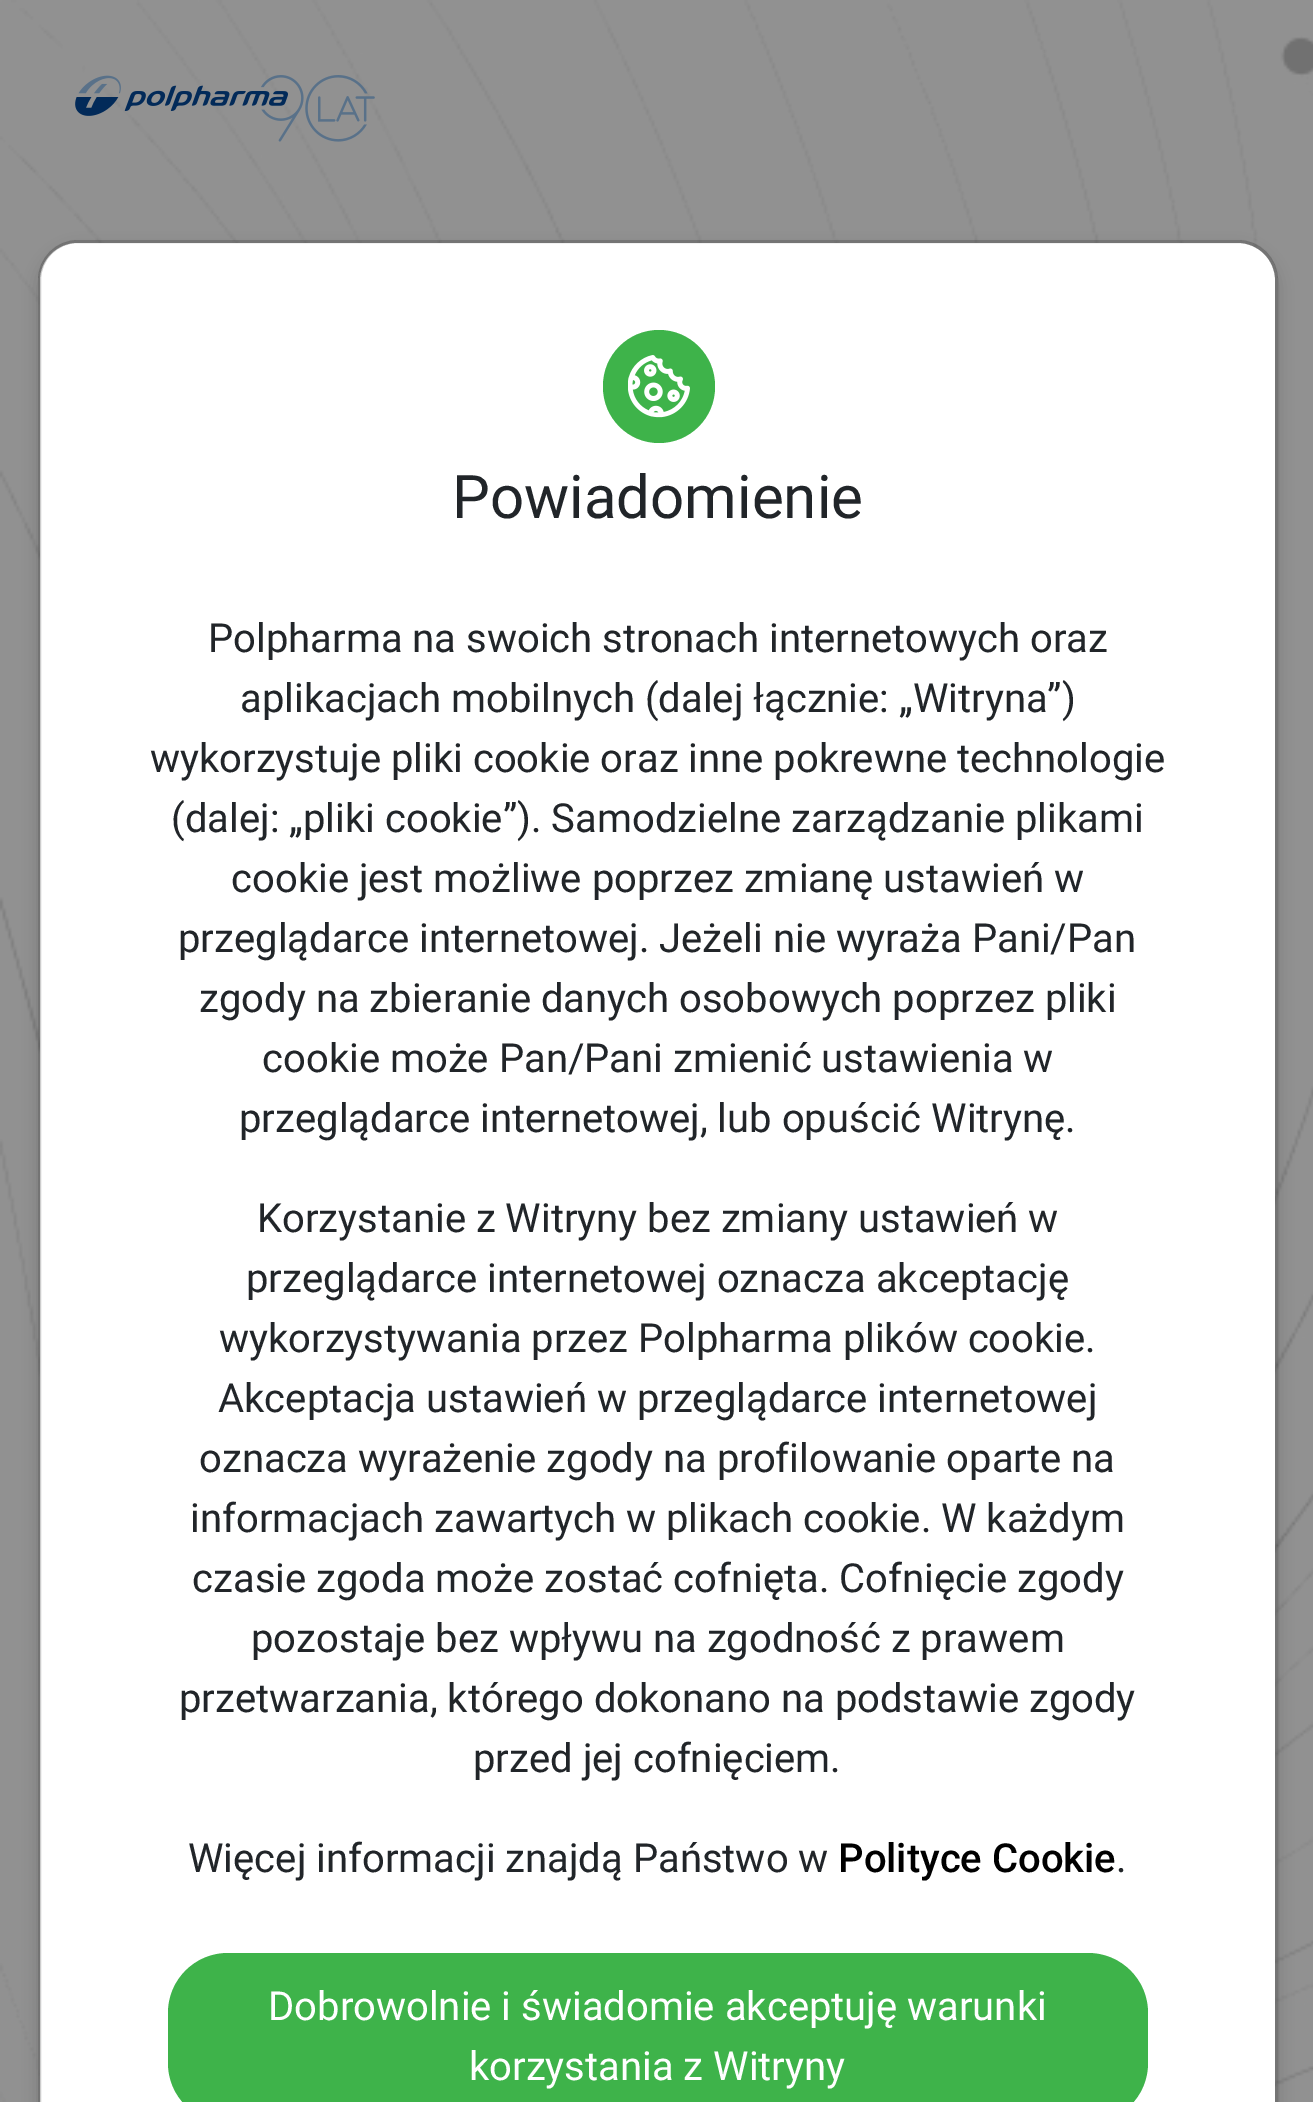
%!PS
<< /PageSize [1313 2102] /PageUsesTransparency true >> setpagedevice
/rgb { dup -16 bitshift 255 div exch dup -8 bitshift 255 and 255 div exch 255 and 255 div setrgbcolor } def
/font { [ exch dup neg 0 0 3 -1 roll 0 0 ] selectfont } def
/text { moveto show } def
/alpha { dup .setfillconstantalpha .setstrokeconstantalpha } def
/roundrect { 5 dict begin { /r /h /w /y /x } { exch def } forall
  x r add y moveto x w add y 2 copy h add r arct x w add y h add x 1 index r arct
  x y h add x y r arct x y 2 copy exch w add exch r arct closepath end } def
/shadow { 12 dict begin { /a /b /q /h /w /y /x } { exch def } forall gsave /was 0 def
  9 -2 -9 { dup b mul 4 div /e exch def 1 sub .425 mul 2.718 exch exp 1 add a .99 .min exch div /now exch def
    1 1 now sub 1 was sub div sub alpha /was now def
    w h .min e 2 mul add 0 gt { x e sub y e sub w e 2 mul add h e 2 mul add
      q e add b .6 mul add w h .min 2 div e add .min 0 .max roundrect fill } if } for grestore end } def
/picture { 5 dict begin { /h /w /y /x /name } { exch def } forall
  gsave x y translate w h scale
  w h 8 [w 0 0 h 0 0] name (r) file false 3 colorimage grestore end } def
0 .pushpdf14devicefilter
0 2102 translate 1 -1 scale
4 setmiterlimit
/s1 { /Roboto-Regular 60 font 16#212529 rgb } def
/s2 { /Roboto-Regular 40 font 16#212529 rgb } def
/s3 { /Roboto-Medium 40 font 16#000000 rgb } def
/s4 { /Roboto-Regular 40 font 16#FFFFFF rgb } def
16#FFFFFF rgb
0 0 1313 2102 rectfill
(pic1.raw) 0 0 1313 2102 picture
(pic2.raw) 75 75 300 67 picture
gsave
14 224 moveto 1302 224 lineto 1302 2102 lineto 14 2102 lineto closepath 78 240 moveto 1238 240 lineto 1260 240 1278 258 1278 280 curveto 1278 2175 lineto 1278 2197 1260 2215 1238 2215 curveto 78 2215 lineto 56 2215 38 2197 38 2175 curveto 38 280 lineto 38 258 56 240 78 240 curveto closepath eoclip newpath
16#000000 rgb
38 248 1240 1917 40 7.5 0.16 shadow
grestore
78 243 moveto 1237 243 lineto 1258 243 1275 260 1275 281 curveto 1275 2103 lineto 40 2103 lineto 40 281 lineto 40 260 57 243 78 243 curveto closepath fill
0.2 alpha
16#000000 rgb
3 setlinewidth
39.5 241.5 1237 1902 38.5 roundrect stroke
1 alpha
16#3EB34A rgb
603 330 112 113 56 roundrect fill
(pic3.raw) 628 355 62 63 picture
s1
(Powiadomienie) 452 518 text
s2
(Polpharma na swoich stronach internetowych oraz) 208 652 text
(aplikacjach mobilnych \(dalej łącznie: „Witryna”\)) 240 712 text
(wykorzystuje pliki cookie oraz inne pokrewne technologie) 150 772 text
(\(dalej: „pliki cookie”\). Samodzielne zarządzanie plikami) 171 832 text
(cookie jest możliwe poprzez zmianę ustawień w) 231 892 text
(przeglądarce internetowej. Jeżeli nie wyraża Pani/Pan) 178 952 text
(zgody na zbieranie danych osobowych poprzez pliki) 199 1012 text
(cookie może Pan/Pani zmienić ustawienia w) 262 1072 text
(przeglądarce internetowej, lub opuścić Witrynę.) 239 1132 text
(Korzystanie z Witryny bez zmiany ustawień w) 257 1232 text
(przeglądarce internetowej oznacza akceptację) 246 1292 text
(wykorzystywania przez Polpharma plików cookie.) 219 1352 text
(Akceptacja ustawień w przeglądarce internetowej) 218 1412 text
(oznacza wyrażenie zgody na profilowanie oparte na) 199 1472 text
(informacjach zawartych w plikach cookie. W każdym) 190 1532 text
(czasie zgoda może zostać cofnięta. Cofnięcie zgody) 192 1592 text
(pozostaje bez wpływu na zgodność z prawem) 251 1652 text
(przetwarzania, którego dokonano na podstawie zgody) 179 1712 text
(przed jej cofnięciem.) 473 1772 text
(Więcej informacji znajdą Państwo w) 188 1872 text
s3
(Polityce Cookie) 838 1872 text
s2
(.) 1116 1872 text
16#3EB34A rgb
168 1953 980 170 60 roundrect fill
s4
(Dobrowolnie i świadomie akceptuję warunki) 268 2020 text
(korzystania z Witryny) 469 2080 text
.poppdf14devicefilter showpage
